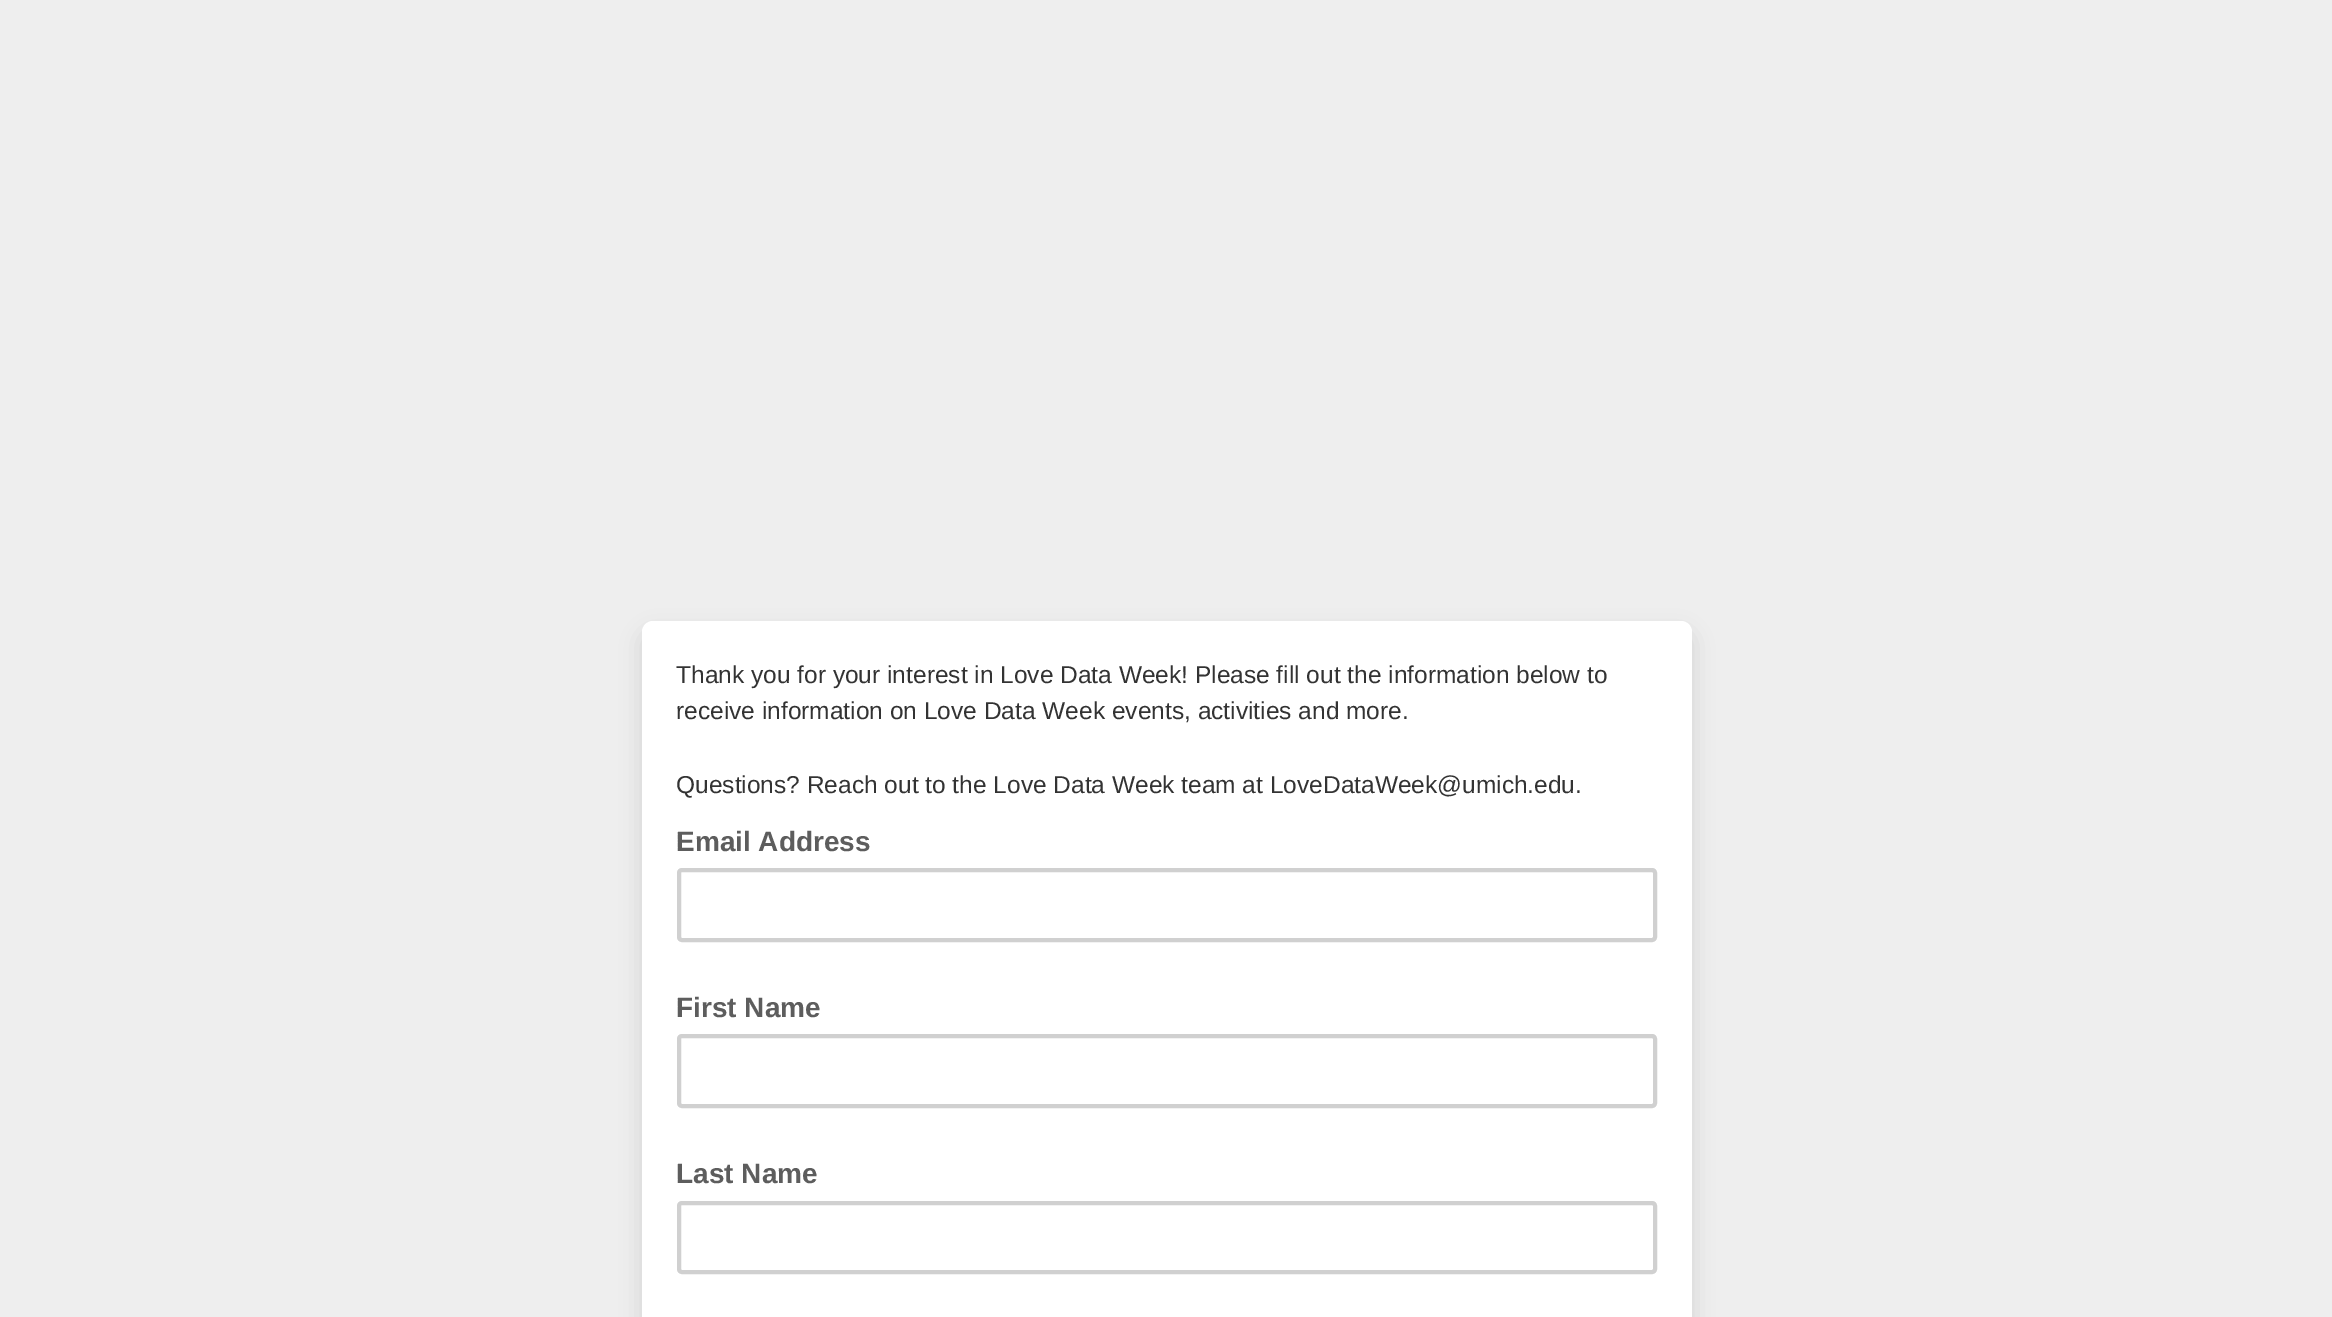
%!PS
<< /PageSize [2332 1317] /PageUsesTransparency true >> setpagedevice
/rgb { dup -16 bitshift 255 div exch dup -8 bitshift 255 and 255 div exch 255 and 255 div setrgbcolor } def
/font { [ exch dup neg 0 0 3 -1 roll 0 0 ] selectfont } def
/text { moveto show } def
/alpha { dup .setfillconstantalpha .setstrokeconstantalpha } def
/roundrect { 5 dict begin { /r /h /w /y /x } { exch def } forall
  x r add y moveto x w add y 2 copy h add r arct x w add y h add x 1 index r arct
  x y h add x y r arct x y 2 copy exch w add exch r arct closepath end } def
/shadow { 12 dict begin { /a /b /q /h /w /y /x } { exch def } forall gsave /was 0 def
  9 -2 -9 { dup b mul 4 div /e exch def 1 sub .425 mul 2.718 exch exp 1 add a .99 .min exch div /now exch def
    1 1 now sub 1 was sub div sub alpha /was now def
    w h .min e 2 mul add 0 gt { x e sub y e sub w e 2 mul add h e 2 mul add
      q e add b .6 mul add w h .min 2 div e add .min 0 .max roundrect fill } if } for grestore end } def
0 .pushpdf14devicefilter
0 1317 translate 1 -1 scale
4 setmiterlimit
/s1 { /LiberationSans-Regular 24.5 font 16#333333 rgb } def
/s2 { /LiberationSans-Bold 28 font 16#5D5D5D rgb } def
16#EEEEEE rgb
0 0 2332 1317 rectfill
16#0D1216 rgb
642 632 1050 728 11 10.5 0.12 shadow
16#FFFFFF rgb
642 621 1050 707 11 roundrect fill
s1
(Thank you for your interest in Love Data Week! Please fill out the information below to) 676 683 text
(receive information on Love Data Week events, activities and more.) 676 719 text
(Questions? Reach out to the Love Data Week team at LoveDataWeek@umich.edu.) 676 793 text
s2
(Email Address) 676 851 text
16#D0D0D0 rgb
4 setlinewidth
679 870 976 70 3 roundrect stroke
s2
(First Name) 676 1017 text
16#D0D0D0 rgb
679 1036 976 70 3 roundrect stroke
s2
(Last Name) 676 1183 text
16#D0D0D0 rgb
679 1203 976 69 3 roundrect stroke
.poppdf14devicefilter showpage
